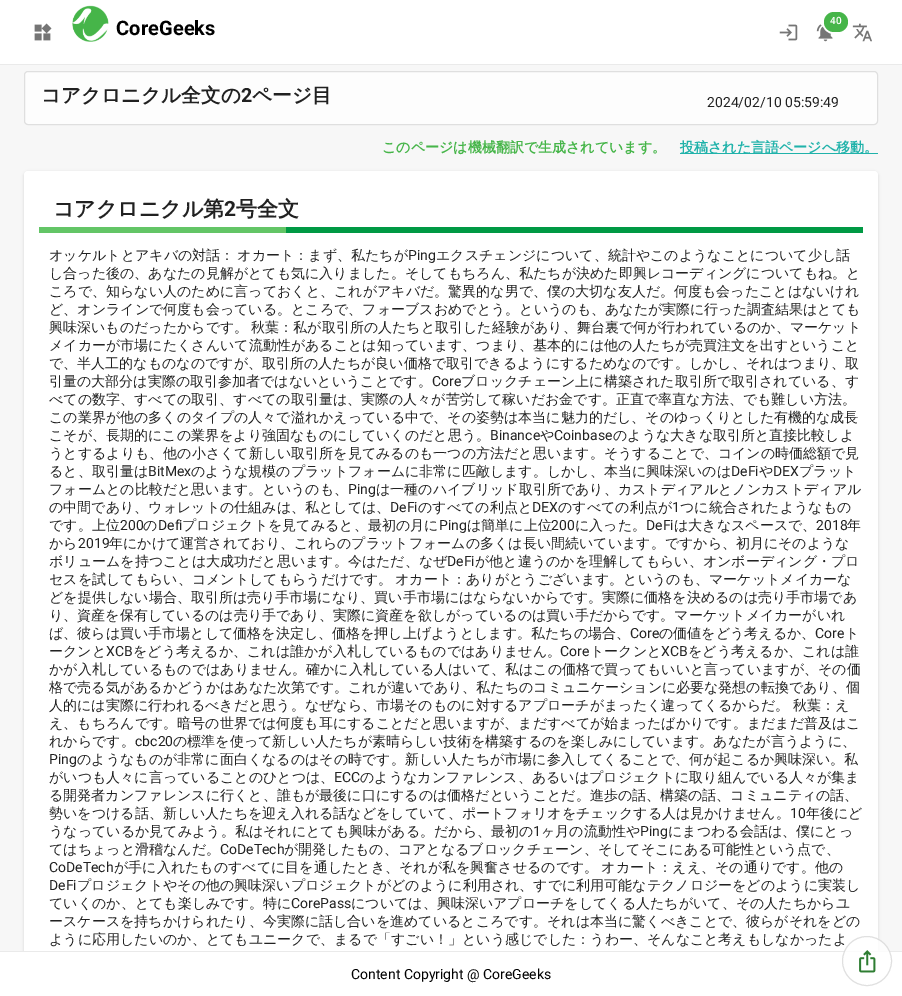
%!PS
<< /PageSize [902 996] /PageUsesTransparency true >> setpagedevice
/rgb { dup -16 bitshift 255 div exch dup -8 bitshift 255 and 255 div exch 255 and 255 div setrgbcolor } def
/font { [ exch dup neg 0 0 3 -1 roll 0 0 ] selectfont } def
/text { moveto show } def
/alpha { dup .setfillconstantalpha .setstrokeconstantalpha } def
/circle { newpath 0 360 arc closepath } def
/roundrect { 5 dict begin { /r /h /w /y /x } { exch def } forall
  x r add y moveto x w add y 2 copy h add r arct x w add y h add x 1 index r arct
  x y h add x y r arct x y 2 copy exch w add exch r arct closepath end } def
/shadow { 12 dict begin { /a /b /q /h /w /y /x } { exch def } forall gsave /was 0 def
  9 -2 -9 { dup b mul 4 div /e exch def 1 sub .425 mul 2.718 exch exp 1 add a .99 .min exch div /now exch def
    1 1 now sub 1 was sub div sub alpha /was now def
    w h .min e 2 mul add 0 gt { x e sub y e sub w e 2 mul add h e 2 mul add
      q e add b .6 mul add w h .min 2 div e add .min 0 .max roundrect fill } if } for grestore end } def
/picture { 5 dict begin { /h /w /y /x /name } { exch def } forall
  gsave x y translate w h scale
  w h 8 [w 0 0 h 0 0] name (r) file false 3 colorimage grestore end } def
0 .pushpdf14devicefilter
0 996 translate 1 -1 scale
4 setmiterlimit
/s1 { /Roboto-Medium 10 font 16#FFFFFF rgb } def
/s2 { /WenQuanYiZenHei-Bold 19.6 font 16#212121 rgb } def
/s3 { /Roboto-Bold 19.6 font 16#212121 rgb } def
/s4 { /Roboto-Regular 14 font 16#212121 rgb } def
/s5 { /WenQuanYiZenHei-Bold 14 font 16#46B549 rgb } def
/s6 { /WenQuanYiZenHei-Bold 14 font 16#20B2AA rgb } def
/s7 { /WenQuanYiZenHei-Bold 21 font 16#212121 rgb } def
/s8 { /Roboto-Bold 21 font 16#212121 rgb } def
/s9 { /WenQuanYiZenHei-Medium 14 font 16#212121 rgb } def
/s10 { /Roboto-Regular 14 font 16#000000 rgb } def
16#F7F7F7 rgb
0 0 902 996 rectfill
16#FFFFFF rgb
0 0 902 64 rectfill
16#EAEAEA rgb
0 64 902 1 rectfill
(pic1.raw) 34 23 18 18 picture
(pic2.raw) 72 5 37 37 picture
/Roboto-Bold 20 font
16#000000 rgb
116 35 moveto 0.1 0 (CoreGeeks) ashow
(pic3.raw) 779 24 19 17 picture
(pic4.raw) 816 24 18 18 picture
16#FFFFFF rgb
2 setlinewidth
823 11 26 22 11 roundrect stroke
16#46B549 rgb
824 12 24 20 10 roundrect fill
s1
(40) 830 24 text
(pic5.raw) 852 23 20 19 picture
16#FDFDFD rgb
24.5 71.5 853 53 3.5 roundrect gsave fill grestore
16#DFDFDF rgb
1 setlinewidth
stroke
s2
(コアクロニクル全文の) 41 102 text
s3
(2) 241 102 text
s2
(ページ目) 252 102 text
s4
(2024/02/10 05:59:49) 707 107 text
s5
(このページは機械翻訳で生成されています。) 382 152 text
16#20B2AA rgb
680 153 198 1 rectfill
(投稿された言語ページへ移動。) 680 152 text
16#000000 rgb
24 172 854 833 4 1.5 0.12 shadow
16#FFFFFF rgb
24 171 854 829 4 roundrect fill
16#009944 rgb
286 227 577 6 rectfill
s7
(コアクロニクル第) 53 216 text
s8
(2) 224 216 text
s7
(号全文) 236 216 text
16#63C566 rgb
39 227 247 6 rectfill
/WenQuanYiZenHei-Medium 14 font
16#212121 rgb
49 260 moveto -1 0 32 (オッケルトとアキバの対話： オカート：まず、私たちが) widthshow
s4
(Ping) 408 260 text
s9
(エクスチェンジについて、統計やこのようなことについて少し話) 436 260 text
(し合った後の、あなたの見解がとても気に入りました。そしてもちろん、私たちが決めた即興レコーディングについてもね。と) 49 278 text
(ころで、知らない人のために言っておくと、これがアキバだ。驚異的な男で、僕の大切な友人だ。何度も会ったことはないけれ) 49 296 text
(ど、オンラインで何度も会っている。ところで、フォーブスおめでとう。というのも、あなたが実際に行った調査結果はとても) 49 314 text
49 332 moveto -1 0 32 (興味深いものだったからです。 秋葉：私が取引所の人たちと取引した経験があり、舞台裏で何が行われているのか、マーケット) widthshow
(メイカーが市場にたくさんいて流動性があることは知っています、つまり、基本的には他の人たちが売買注文を出すということ) 49 350 text
(で、半人工的なものなのですが、取引所の人たちが良い価格で取引できるようにするためなのです。しかし、それはつまり、取) 49 368 text
(引量の大部分は実際の取引参加者ではないということです。) 49 386 text
s4
(Core) 432 386 text
s9
(ブロックチェーン上に構築された取引所で取引されている、す) 461 386 text
(べての数字、すべての取引、すべての取引量は、実際の人々が苦労して稼いだお金です。正直で率直な方法、でも難しい方法。) 49 404 text
(この業界が他の多くのタイプの人々で溢れかえっている中で、その姿勢は本当に魅力的だし、そのゆっくりとした有機的な成長) 49 422 text
(こそが、長期的にこの業界をより強固なものにしていくのだと思う。) 49 440 text
s4
(Binance) 490 440 text
s9
(や) 540 440 text
s4
(Coinbase) 554 440 text
s9
(のような大きな取引所と直接比較しよ) 613 440 text
(うとするよりも、他の小さくて新しい取引所を見てみるのも一つの方法だと思います。そうすることで、コインの時価総額で見) 49 458 text
(ると、取引量は) 49 476 text
s4
(BitMex) 148 476 text
s9
(のような規模のプラットフォームに非常に匹敵します。しかし、本当に興味深いのは) 191 476 text
s4
(DeFi) 731 476 text
s9
(や) 759 476 text
s4
(DEX) 773 476 text
s9
(プラット) 799 476 text
(フォームとの比較だと思います。というのも、) 49 494 text
s4
(Ping) 348 494 text
s9
(は一種のハイブリッド取引所であり、カストディアルとノンカストディアル) 376 494 text
(の中間であり、ウォレットの仕組みは、私としては、) 49 512 text
s4
(DeFi) 390 512 text
s9
(のすべての利点と) 418 512 text
s4
(DEX) 532 512 text
s9
(のすべての利点が) 558 512 text
s4
(1) 672 512 text
s9
(つに統合されたようなもの) 680 512 text
(です。上位) 49 530 text
s4
(200) 120 530 text
s9
(の) 143 530 text
s4
(Defi) 158 530 text
s9
(プロジェクトを見てみると、最初の月に) 182 530 text
s4
(Ping) 439 530 text
s9
(は簡単に上位) 467 530 text
s4
(200) 551 530 text
s9
(に入った。) 575 530 text
s4
(DeFi) 646 530 text
s9
(は大きなスペースで、) 674 530 text
s4
(2018) 816 530 text
s9
(年) 847 530 text
(から) 49 548 text
s4
(2019) 78 548 text
s9
(年にかけて運営されており、これらのプラットフォームの多くは長い間続いています。ですから、初月にそのような) 109 548 text
(ボリュームを持つことは大成功だと思います。今はただ、なぜ) 49 566 text
s4
(DeFi) 447 566 text
s9
(が他と違うのかを理解してもらい、オンボーディング・プロ) 475 566 text
49 584 moveto -1 0 32 (セスを試してもらい、コメントしてもらうだけです。 オカート：ありがとうございます。というのも、マーケットメイカーな) widthshow
(どを提供しない場合、取引所は売り手市場になり、買い手市場にはならないからです。実際に価格を決めるのは売り手市場であ) 49 602 text
(り、資産を保有しているのは売り手であり、実際に資産を欲しがっているのは買い手だからです。マーケットメイカーがいれ) 49 620 text
(ば、彼らは買い手市場として価格を決定し、価格を押し上げようとします。私たちの場合、) 49 638 text
s4
(Core) 630 638 text
s9
(の価値をどう考えるか、) 659 638 text
s4
(Core) 815 638 text
s9
(ト) 845 638 text
(ークンと) 49 656 text
s4
(XCB) 106 656 text
s9
(をどう考えるか、これは誰かが入札しているものではありません。) 133 656 text
s4
(Core) 560 656 text
s9
(トークンと) 590 656 text
s4
(XCB) 661 656 text
s9
(をどう考えるか、これは誰) 688 656 text
(かが入札しているものではありません。確かに入札している人はいて、私はこの価格で買ってもいいと言っていますが、その価) 49 674 text
(格で売る気があるかどうかはあなた次第です。これが違いであり、私たちのコミュニケーションに必要な発想の転換であり、個) 49 692 text
49 710 moveto -1 0 32 (人的には実際に行われるべきだと思う。なぜなら、市場そのものに対するアプローチがまったく違ってくるからだ。 秋葉：え) widthshow
(え、もちろんです。暗号の世界では何度も耳にすることだと思いますが、まだすべてが始まったばかりです。まだまだ普及はこ) 49 728 text
(れからです。) 49 746 text
s4
(cbc20) 135 746 text
s9
(の標準を使って新しい人たちが素晴らしい技術を構築するのを楽しみにしています。あなたが言うように、) 173 746 text
s4
(Ping) 49 764 text
s9
(のようなものが非常に面白くなるのはその時です。新しい人たちが市場に参入してくることで、何が起こるか興味深い。私) 77 764 text
(がいつも人々に言っていることのひとつは、) 49 782 text
s4
(ECC) 334 782 text
s9
(のようなカンファレンス、あるいはプロジェクトに取り組んでいる人々が集ま) 360 782 text
(る開発者カンファレンスに行くと、誰もが最後に口にするのは価格だということだ。進歩の話、構築の話、コミュニティの話、) 49 800 text
(勢いをつける話、新しい人たちを迎え入れる話などをしていて、ポートフォリオをチェックする人は見かけません。) 49 818 text
s4
(10) 790 818 text
s9
(年後にど) 806 818 text
(うなっているか見てみよう。私はそれにとても興味がある。だから、最初の) 49 836 text
s4
(1) 533 836 text
s9
(ヶ月の流動性や) 541 836 text
s4
(Ping) 640 836 text
s9
(にまつわる会話は、僕にとっ) 668 836 text
(てはちょっと滑稽なんだ。) 49 854 text
s4
(CoDeTech) 220 854 text
s9
(が開発したもの、コアとなるブロックチェーン、そしてそこにある可能性という点で、) 284 854 text
s4
(CoDeTech) 49 872 text
/WenQuanYiZenHei-Medium 14 font
114 872 moveto -1 0 32 (が手に入れたものすべてに目を通したとき、それが私を興奮させるのです。 オカート：ええ、その通りです。他の) widthshow
s4
(DeFi) 49 890 text
s9
(プロジェクトやその他の興味深いプロジェクトがどのように利用され、すでに利用可能なテクノロジーをどのように実装し) 77 890 text
(ていくのか、とても楽しみです。特に) 49 908 text
s4
(CorePass) 291 908 text
s9
(については、興味深いアプローチをしてくる人たちがいて、その人たちからユ) 351 908 text
(ースケースを持ちかけられたり、今実際に話し合いを進めているところです。それは本当に驚くべきことで、彼らがそれをどの) 49 926 text
(ように応用したいのか、とてもユニークで、まるで「すごい！」という感じでした：うわー、そんなこと考えもしなかったよ) 49 944 text
16#FFFFFF rgb
0 952 902 44 rectfill
16#EAEAEA rgb
0 951 902 1 rectfill
s10
(Content Copyright @ CoreGeeks) 351 979 text
0.8 alpha
16#FFFFFF rgb
867 961 25 circle fill
0.12 alpha
16#000000 rgb
867 961 24.5 circle stroke
1 alpha
(pic6.raw) 859 950 17 23 picture
.poppdf14devicefilter showpage
